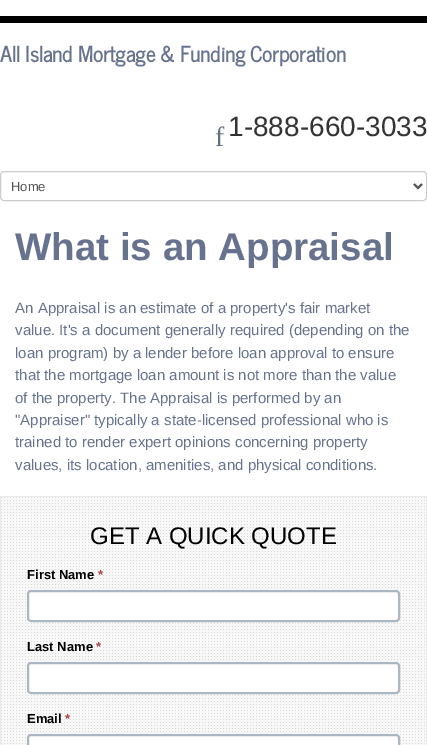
%!PS
<< /PageSize [427 745] >> setpagedevice
/rgb { dup -16 bitshift 255 div exch dup -8 bitshift 255 and 255 div exch 255 and 255 div setrgbcolor } def
/font { [ exch dup neg 0 0 3 -1 roll 0 0 ] selectfont } def
/text { moveto show } def
/roundrect { 5 dict begin { /r /h /w /y /x } { exch def } forall
  x r add y moveto x w add y 2 copy h add r arct x w add y h add x 1 index r arct
  x y h add x y r arct x y 2 copy exch w add exch r arct closepath end } def
/picture { 5 dict begin { /h /w /y /x /name } { exch def } forall
  gsave x y translate w h scale
  w h 8 [w 0 0 h 0 0] name (r) file false 3 colorimage grestore end } def
0 745 translate 1 -1 scale
4 setmiterlimit
/s1 { /NewsCycle-Bold 21 font 16#66728E rgb } def
/s2 { /LiberationSerif-Regular 28 font 16#61717E rgb } def
/s3 { /LiberationSans-Regular 28 font 16#333333 rgb } def
/s4 { /LiberationSans-Regular 13 font 16#555555 rgb } def
/s5 { /LiberationSans-Bold 38.5 font 16#66728E rgb } def
/s6 { /LiberationSans-Regular 15 font 16#66728E rgb } def
/s7 { /LiberationSans-Regular 24 font 16#000000 rgb } def
/s8 { /LiberationSans-Bold 13 font 16#000000 rgb } def
/s9 { /LiberationSans-Bold 13 font 16#A94442 rgb } def
16#FFFFFF rgb
0 0 427 745 rectfill
16#000000 rgb
0 16 427 7 rectfill
s1
(All Island Mortgage & Funding Corporation) 0 62 text
s2
(f) 215 146 text
s3
(1-888-660-3033) 228 136 text
16#CCCCCC rgb
0.5 171.5 426 29 3.5 roundrect stroke
16#555555 rgb
2 setlinewidth
414 184 moveto 418 188 lineto 422 184 lineto stroke
s4
(Home) 11 191 text
s5
(What is an Appraisal) 15 260 text
s6
(An Appraisal is an estimate of a property's fair market) 15 313 text
(value. It's a document generally required \(depending on the) 15 335 text
(loan program\) by a lender before loan approval to ensure) 15 358 text
(that the mortgage loan amount is not more than the value) 15 380 text
(of the property. The Appraisal is performed by an) 15 403 text
("Appraiser" typically a state-licensed professional who is) 15 425 text
(trained to render expert opinions concerning property) 15 447 text
(values, its location, amenities, and physical conditions.) 15 470 text
16#F8F8F8 rgb
1 497 425 248 rectfill
(pic1.raw) 1 497 424 247 picture
16#EAEAEA rgb
1 setlinewidth
0.5 496.5 426 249 rectstroke
s7
(GET A QUICK QUOTE) 90 544 text
s8
(First Name) 27 579 text
s9
(*) 98 579 text
16#FFFFFF rgb
28 591 371 30 3 roundrect gsave fill grestore
16#ABB7C5 rgb
2 setlinewidth
stroke
s8
(Last Name) 27 651 text
s9
(*) 96 651 text
16#FFFFFF rgb
28 663 371 30 3 roundrect gsave fill grestore
16#ABB7C5 rgb
stroke
s8
(Email) 27 723 text
s9
(*) 65 723 text
16#FFFFFF rgb
28 735 371 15 3 roundrect gsave fill grestore
16#ABB7C5 rgb
stroke
showpage
